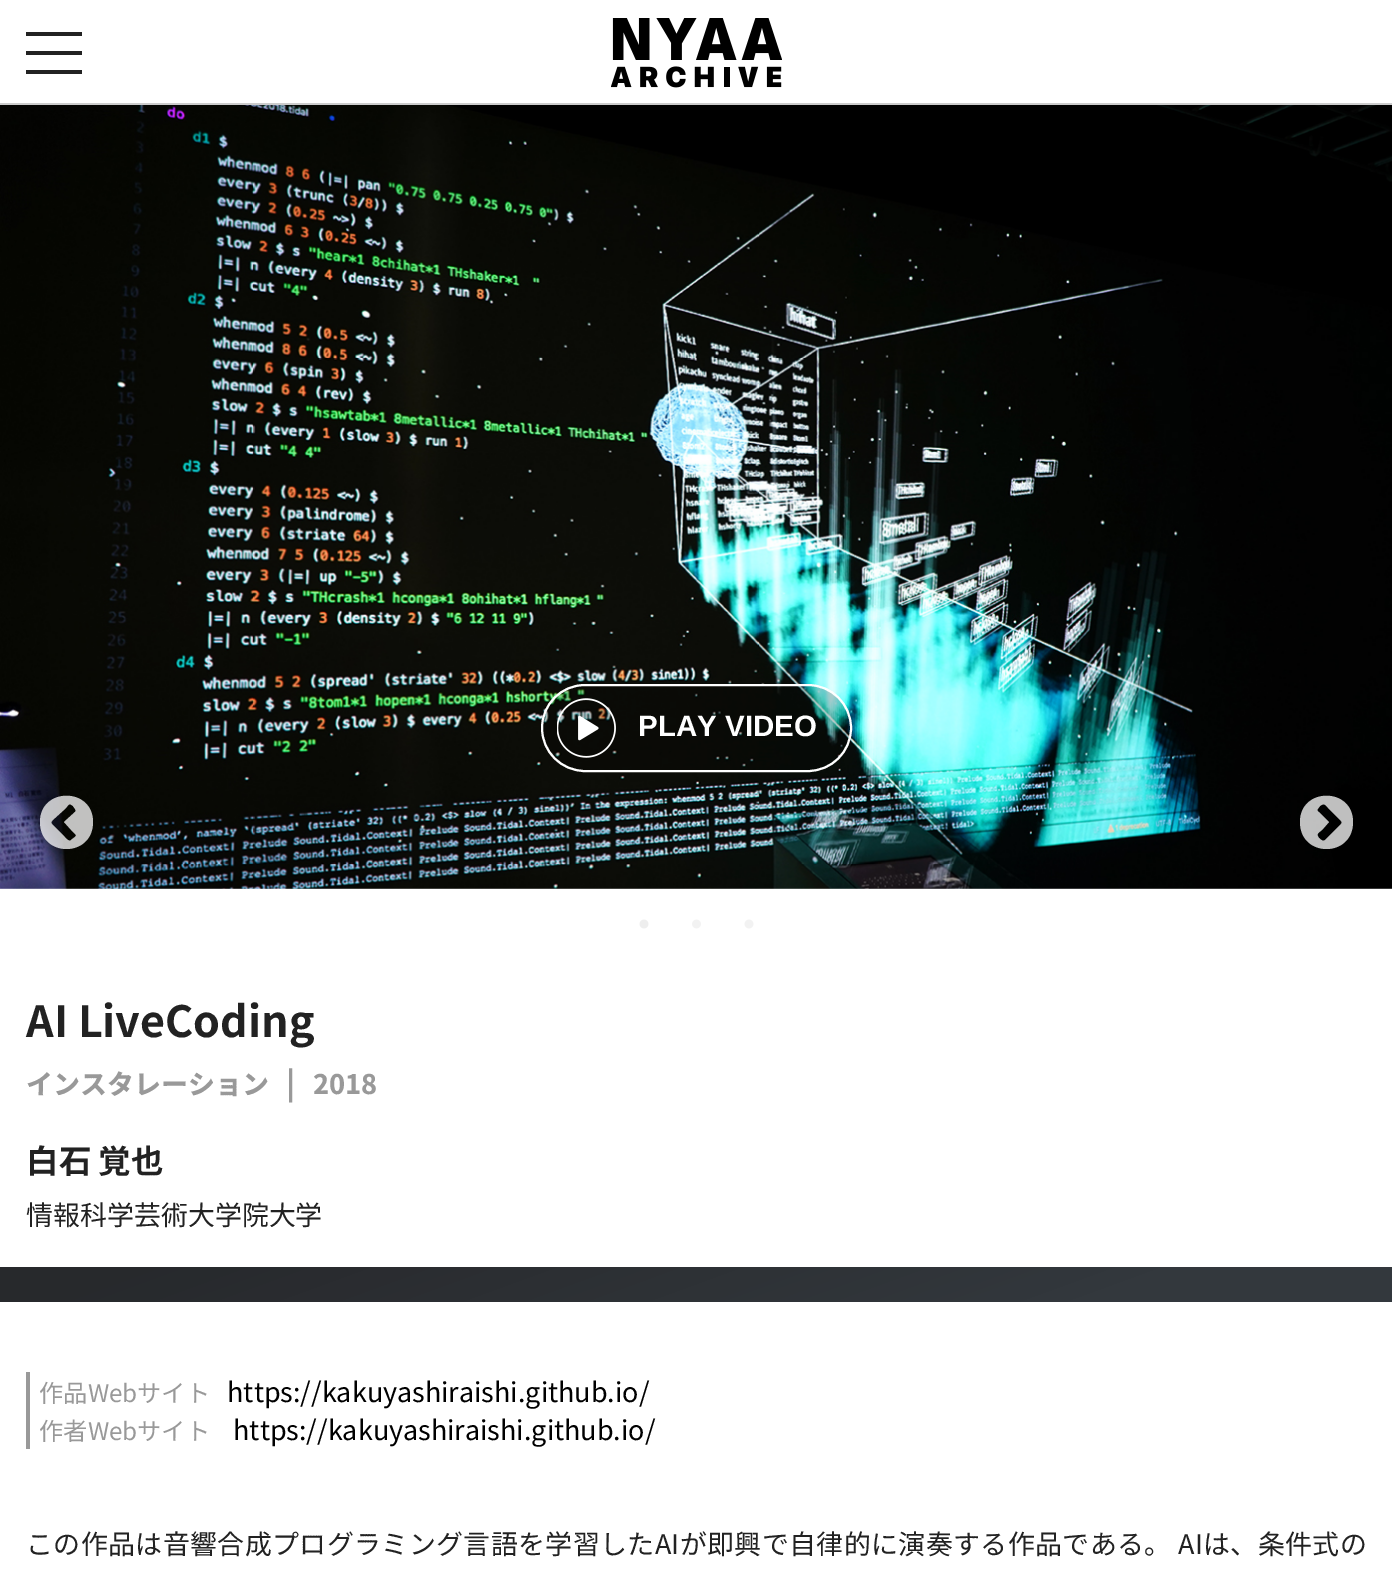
%!PS
<< /PageSize [1392 1570] /PageUsesTransparency true >> setpagedevice
/rgb { dup -16 bitshift 255 div exch dup -8 bitshift 255 and 255 div exch 255 and 255 div setrgbcolor } def
/font { [ exch dup neg 0 0 3 -1 roll 0 0 ] selectfont } def
/text { moveto show } def
/alpha { dup .setfillconstantalpha .setstrokeconstantalpha } def
/roundrect { 5 dict begin { /r /h /w /y /x } { exch def } forall
  x r add y moveto x w add y 2 copy h add r arct x w add y h add x 1 index r arct
  x y h add x y r arct x y 2 copy exch w add exch r arct closepath end } def
/picture { 5 dict begin { /h /w /y /x /name } { exch def } forall
  gsave x y translate w h scale
  w h 8 [w 0 0 h 0 0] name (r) file false 3 colorimage grestore end } def
0 .pushpdf14devicefilter
0 1570 translate 1 -1 scale
4 setmiterlimit
/s1 { /LiberationSans-Bold 29.5 font 16#FFFFFF rgb } def
/s2 { /NotoSansJP-Bold 43 font 16#222222 rgb } def
/s3 { /NotoSansJP-ExtraBold 26.95 font 16#999999 rgb } def
/s4 { /NotoSansJP-ExtraBold 30 font 16#999999 rgb } def
/s5 { /NotoSansJP-Bold 32.5 font 16#222222 rgb } def
/s6 { /NotoSansJP-Regular 26.95 font 16#222222 rgb } def
/s7 { /NotoSansJP-Regular 24.25 font 16#999999 rgb } def
/s8 { /NotoSansJP-Regular 26.95 font 16#000000 rgb } def
16#FFFFFF rgb
0 0 1392 1570 rectfill
16#CCCCCC rgb
0 103 1392 2 rectfill
16#222222 rgb
26 32 56 4 rectfill
26 51 56 4 rectfill
26 70 56 4 rectfill
(pic1.raw) 611 18 171 70 picture
(pic2.raw) 0 105 1392 784 picture
0.75 alpha
16#FFFFFF rgb
71 840 moveto 69 843 64 836 63 835 curveto 55 827 lineto 50 822 50 823 55 818 curveto 66 808 lineto 69 804 69 803 73 806 curveto 74 808 77 810 75 812 curveto 64 822 lineto 73 832 lineto 78 836 76 836 71 840 curveto closepath 93 822 moveto 93 787 40 787 40 822 curveto 40 858 93 858 93 822 curveto closepath fill
1325 840 moveto 1323 842 1320 839 1319 838 curveto 1316 834 1318 833 1322 830 curveto 1329 822 lineto 1320 813 lineto 1316 810 1317 810 1320 806 curveto 1325 802 1326 806 1330 810 curveto 1338 818 lineto 1343 823 1343 822 1338 827 curveto closepath 1353 822 moveto 1353 787 1300 787 1300 822 curveto 1300 858 1353 858 1353 822 curveto closepath fill
1 alpha
(pic3.raw) 639 919 10 10 picture
(pic4.raw) 692 919 9 10 picture
(pic5.raw) 744 919 10 10 picture
0.2 alpha
16#000000 rgb
542 685 309 86 43 roundrect fill
1 alpha
16#FFFFFF rgb
2 setlinewidth
542 685 309 86 43 roundrect stroke
(pic6.raw) 557 698 59 60 picture
s1
(PLAY VIDEO) 638 736 text
s2
(AI LiveCoding) 26 1037 text
s3
(インスタレーション) 26 1094 text
s4
(|) 286 1094 text
s3
(2018) 313 1094 text
s5
(白石 覚也) 26 1173 text
s6
(情報科学芸術大学院大学) 26 1225 text
gsave 0 1267 moveto 1392 1267 lineto 1392 1302 lineto 0 1302 lineto closepath clip newpath
<< /ShadingType 2 /ColorSpace /DeviceRGB /Coords [609 1045 784 1524] /Extend [true true] /Function << /FunctionType 3 /Domain [0 1] /Functions [<< /FunctionType 2 /Domain [0 1] /C0 [0.153 0.161 0.173] /C1 [0.153 0.161 0.173] /N 1 >> << /FunctionType 2 /Domain [0 1] /C0 [0.153 0.161 0.173] /C1 [0.2 0.22 0.239] /N 1 >> << /FunctionType 2 /Domain [0 1] /C0 [0.2 0.22 0.239] /C1 [0.2 0.22 0.239] /N 1 >>] /Bounds [0.1 0.8] /Encode [0 1 0 1 0 1] >> >> shfill grestore
16#999999 rgb
26 1372 4 77 rectfill
s7
(作品Webサイト) 39 1402 text
s8
(https://kakuyashiraishi.github.io/) 227 1402 text
s7
(作者Webサイト) 39 1440 text
s8
(https://kakuyashiraishi.github.io/) 233 1440 text
16#222222 rgb
26 1554 moveto 0.38 0 (この作品は音響合成プログラミング言語を学習したAIが即興で自律的に演奏する作品である。 AIは、条件式の) ashow
.poppdf14devicefilter showpage
